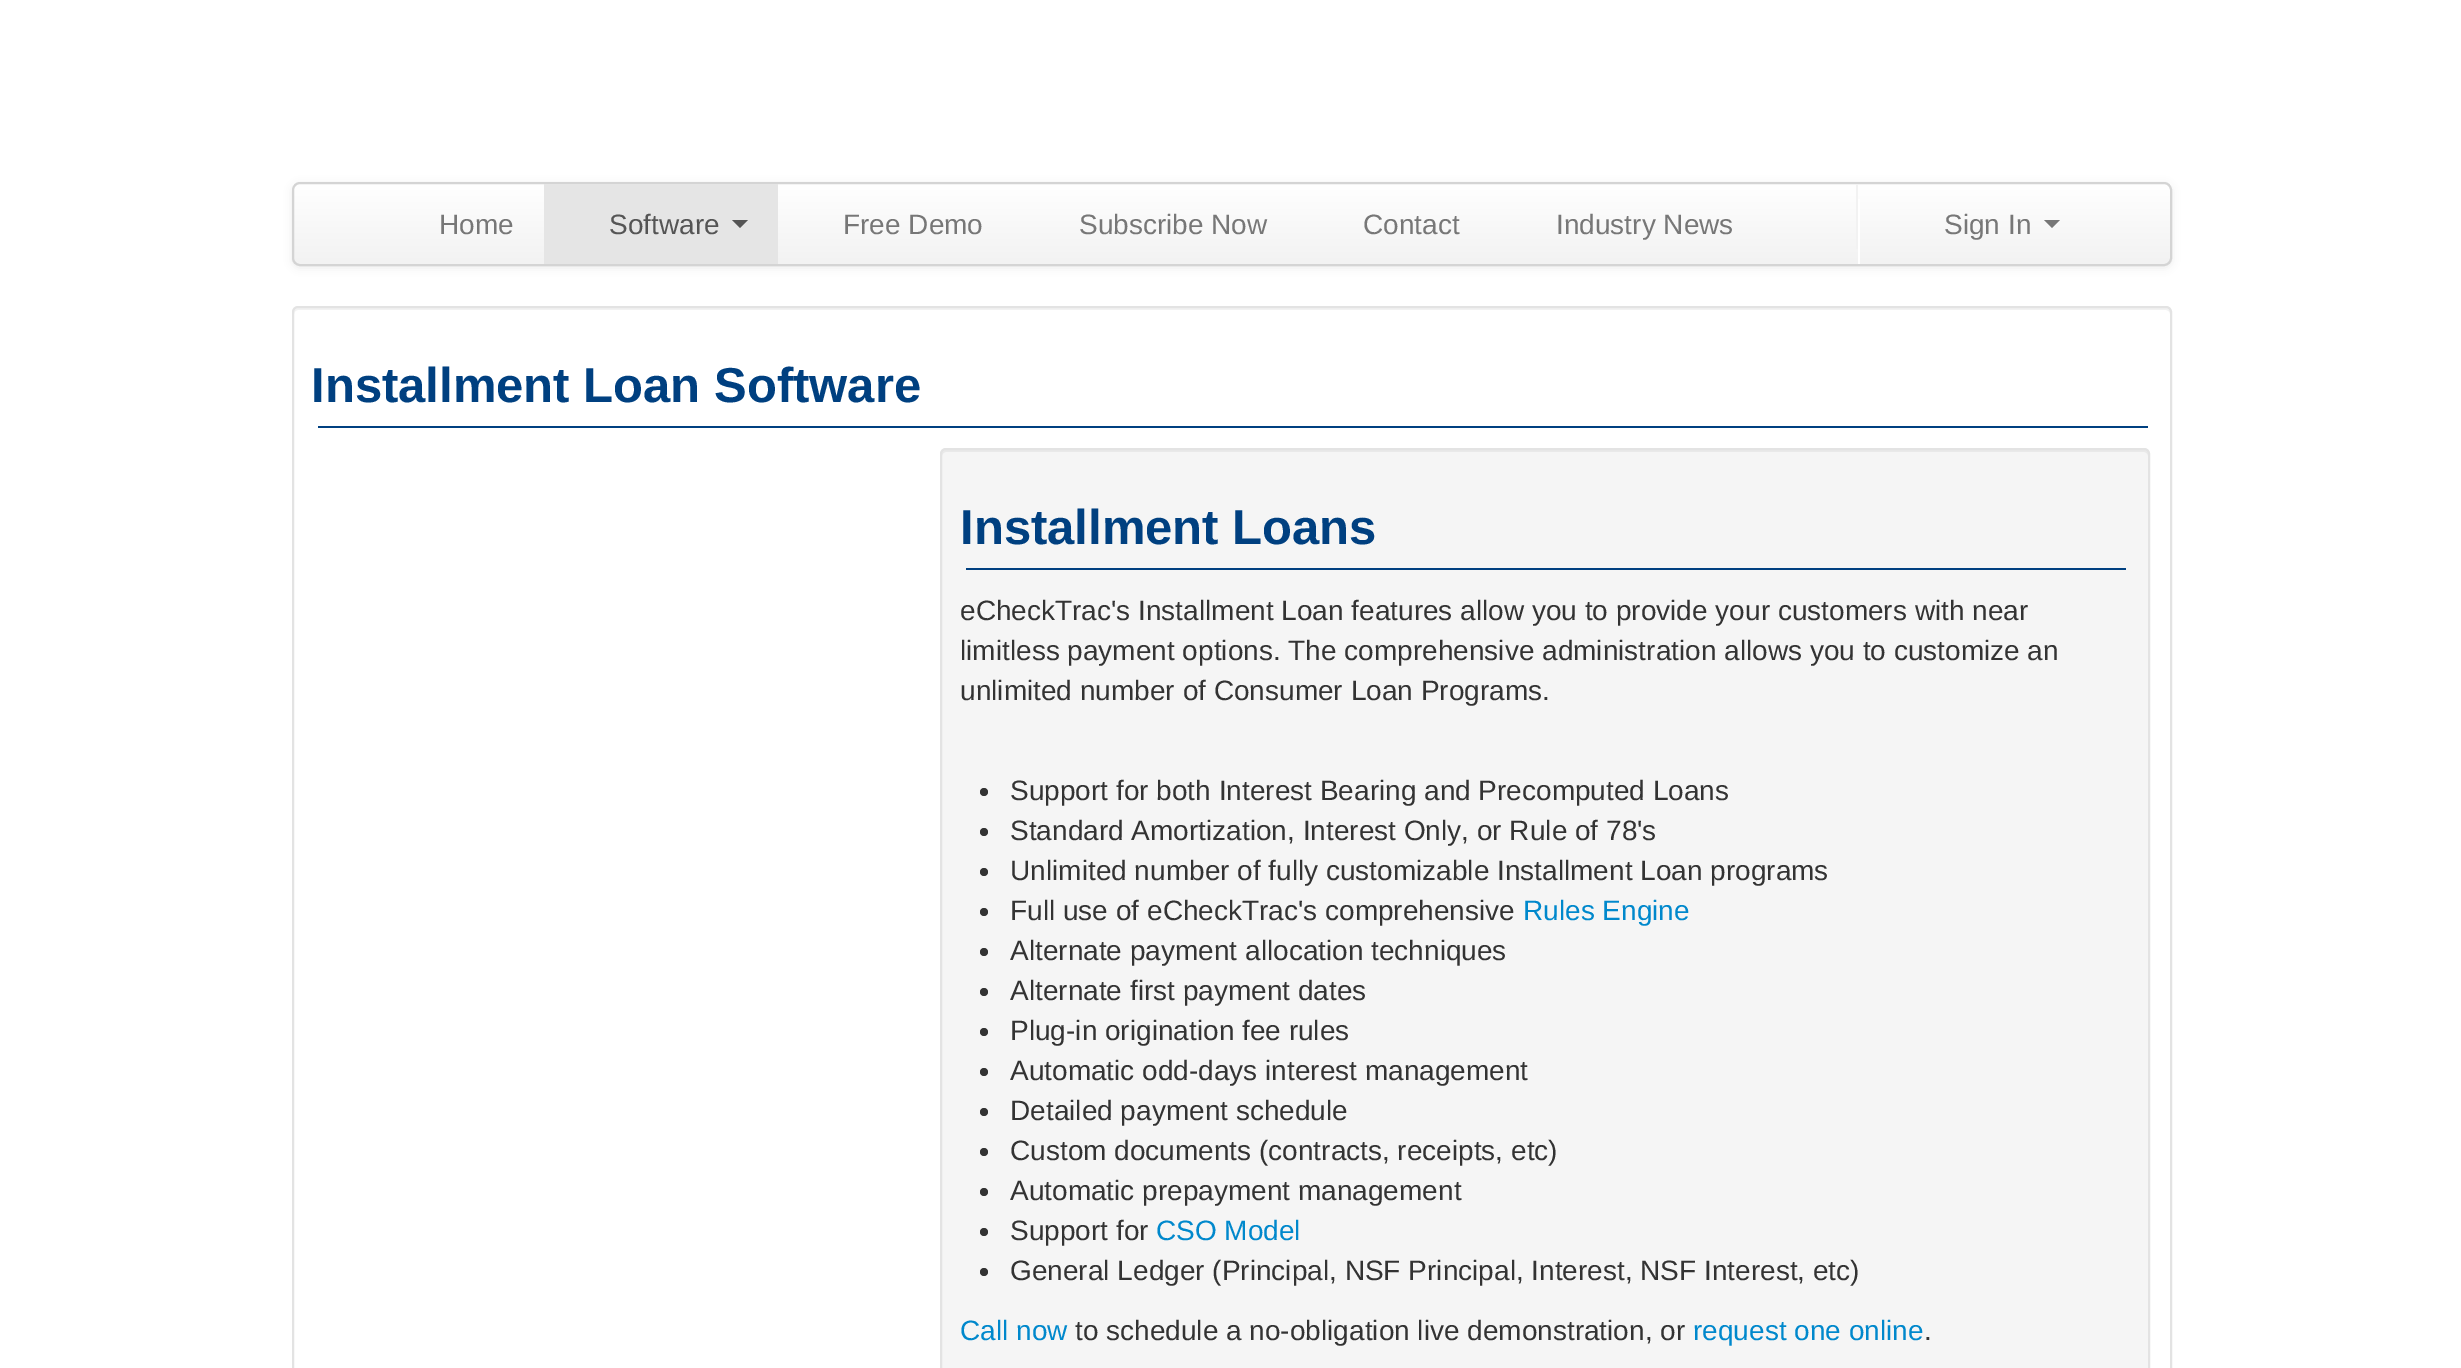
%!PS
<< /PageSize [2461 1368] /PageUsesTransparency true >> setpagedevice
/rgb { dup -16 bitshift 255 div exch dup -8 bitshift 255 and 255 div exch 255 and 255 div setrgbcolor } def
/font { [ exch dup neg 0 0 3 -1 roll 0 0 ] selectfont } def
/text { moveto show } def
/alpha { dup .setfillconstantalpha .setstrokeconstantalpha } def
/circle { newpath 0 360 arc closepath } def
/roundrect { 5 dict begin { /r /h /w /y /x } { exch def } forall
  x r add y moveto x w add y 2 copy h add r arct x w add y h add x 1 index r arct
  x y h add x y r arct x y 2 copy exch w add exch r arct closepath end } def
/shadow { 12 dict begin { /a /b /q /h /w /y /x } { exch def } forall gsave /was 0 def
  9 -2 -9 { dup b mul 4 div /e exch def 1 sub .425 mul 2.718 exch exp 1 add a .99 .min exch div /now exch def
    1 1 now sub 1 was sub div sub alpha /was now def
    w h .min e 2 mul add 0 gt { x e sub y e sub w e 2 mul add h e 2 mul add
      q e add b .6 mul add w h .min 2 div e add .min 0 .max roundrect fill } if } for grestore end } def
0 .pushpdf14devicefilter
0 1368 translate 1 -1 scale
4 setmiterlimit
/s1 { /LiberationSans-Regular 28 font 16#777777 rgb } def
/s2 { /LiberationSans-Regular 28 font 16#555555 rgb } def
/s3 { /LiberationSans-Bold 49 font 16#004080 rgb } def
/s4 { /LiberationSans-Regular 28 font 16#333333 rgb } def
/s5 { /LiberationSans-Regular 28 font 16#0088CC rgb } def
16#FFFFFF rgb
0 0 2461 1368 rectfill
16#000000 rgb
292 184 1880 84 8 4 0.07 shadow
gsave
292 182 1880 84 8 roundrect clip newpath
gsave 292 184 moveto 2172 184 lineto 2172 264 lineto 292 264 lineto closepath clip newpath
<< /ShadingType 2 /ColorSpace /DeviceRGB /Coords [1232 184 1232 264] /Extend [true true] /Function << /FunctionType 2 /Domain [0 1] /C0 [1 1 1] /C1 [0.949 0.949 0.949] /N 1 >> >> shfill grestore
grestore
16#D4D4D4 rgb
2 setlinewidth
293 183 1878 82 7 roundrect stroke
s1
(Home) 439 234 text
16#E5E5E5 rgb
544 184 234 80 rectfill
s2
(Software) 609 234 text
732 220 moveto 748 220 lineto 740 228 lineto closepath fill
s1
(Free Demo) 843 234 text
(Subscribe Now) 1079 234 text
(Contact) 1363 234 text
(Industry News) 1556 234 text
16#FFFFFF rgb
1858 199 2 65 rectfill
16#F2F2F2 rgb
1856 184 2 65 rectfill
s1
(Sign In) 1944 234 text
2044 220 moveto 2060 220 lineto 2052 228 lineto closepath fill
16#F2F2F2 rgb
298 310 moveto 2166 310 lineto 2168 310 2170 312 2170 314 curveto 2170 312 lineto 2170 310 2168 308 2166 308 curveto 298 308 lineto 296 308 294 310 294 312 curveto 294 314 lineto 294 312 296 310 298 310 curveto closepath fill
16#E3E3E3 rgb
293 307 1878 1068 5 roundrect stroke
16#004080 rgb
318 426 1830 2 rectfill
s3
(Installment Loan Software) 311 402 text
16#F5F5F5 rgb
940 448 1210 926 6 roundrect fill
16#E9E9E9 rgb
946 452 moveto 2144 452 lineto 2146 452 2148 454 2148 456 curveto 2148 454 lineto 2148 452 2146 450 2144 450 curveto 946 450 lineto 944 450 942 452 942 454 curveto 942 456 lineto 942 454 944 452 946 452 curveto closepath fill
16#E3E3E3 rgb
941 449 1208 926 5 roundrect stroke
16#004080 rgb
966 568 1160 2 rectfill
(Installment Loans) 960 544 text
s4
(eCheckTrac's Installment Loan features allow you to provide your customers with near) 960 620 text
(limitless payment options. The comprehensive administration allows you to customize an) 960 660 text
(unlimited number of Consumer Loan Programs.) 960 700 text
984 792 4 circle fill
(Support for both Interest Bearing and Precomputed Loans) 1010 800 text
984 832 4 circle fill
(Standard Amortization, Interest Only, or Rule of 78's) 1010 840 text
984 872 4 circle fill
(Unlimited number of fully customizable Installment Loan programs) 1010 880 text
984 912 4 circle fill
(Full use of eCheckTrac's comprehensive) 1010 920 text
s5
(Rules Engine) 1523 920 text
16#333333 rgb
984 952 4 circle fill
(Alternate payment allocation techniques) 1010 960 text
984 992 4 circle fill
(Alternate first payment dates) 1010 1000 text
984 1032 4 circle fill
(Plug-in origination fee rules) 1010 1040 text
984 1072 4 circle fill
(Automatic odd-days interest management) 1010 1080 text
984 1112 4 circle fill
(Detailed payment schedule) 1010 1120 text
984 1152 4 circle fill
(Custom documents \(contracts, receipts, etc\)) 1010 1160 text
984 1192 4 circle fill
(Automatic prepayment management) 1010 1200 text
984 1232 4 circle fill
(Support for) 1010 1240 text
s5
(CSO Model) 1156 1240 text
16#333333 rgb
984 1272 4 circle fill
(General Ledger \(Principal, NSF Principal, Interest, NSF Interest, etc\)) 1010 1280 text
s5
(Call now) 960 1340 text
s4
(to schedule a no-obligation live demonstration, or) 1075 1340 text
s5
(request one online) 1693 1340 text
s4
(.) 1924 1340 text
.poppdf14devicefilter showpage
